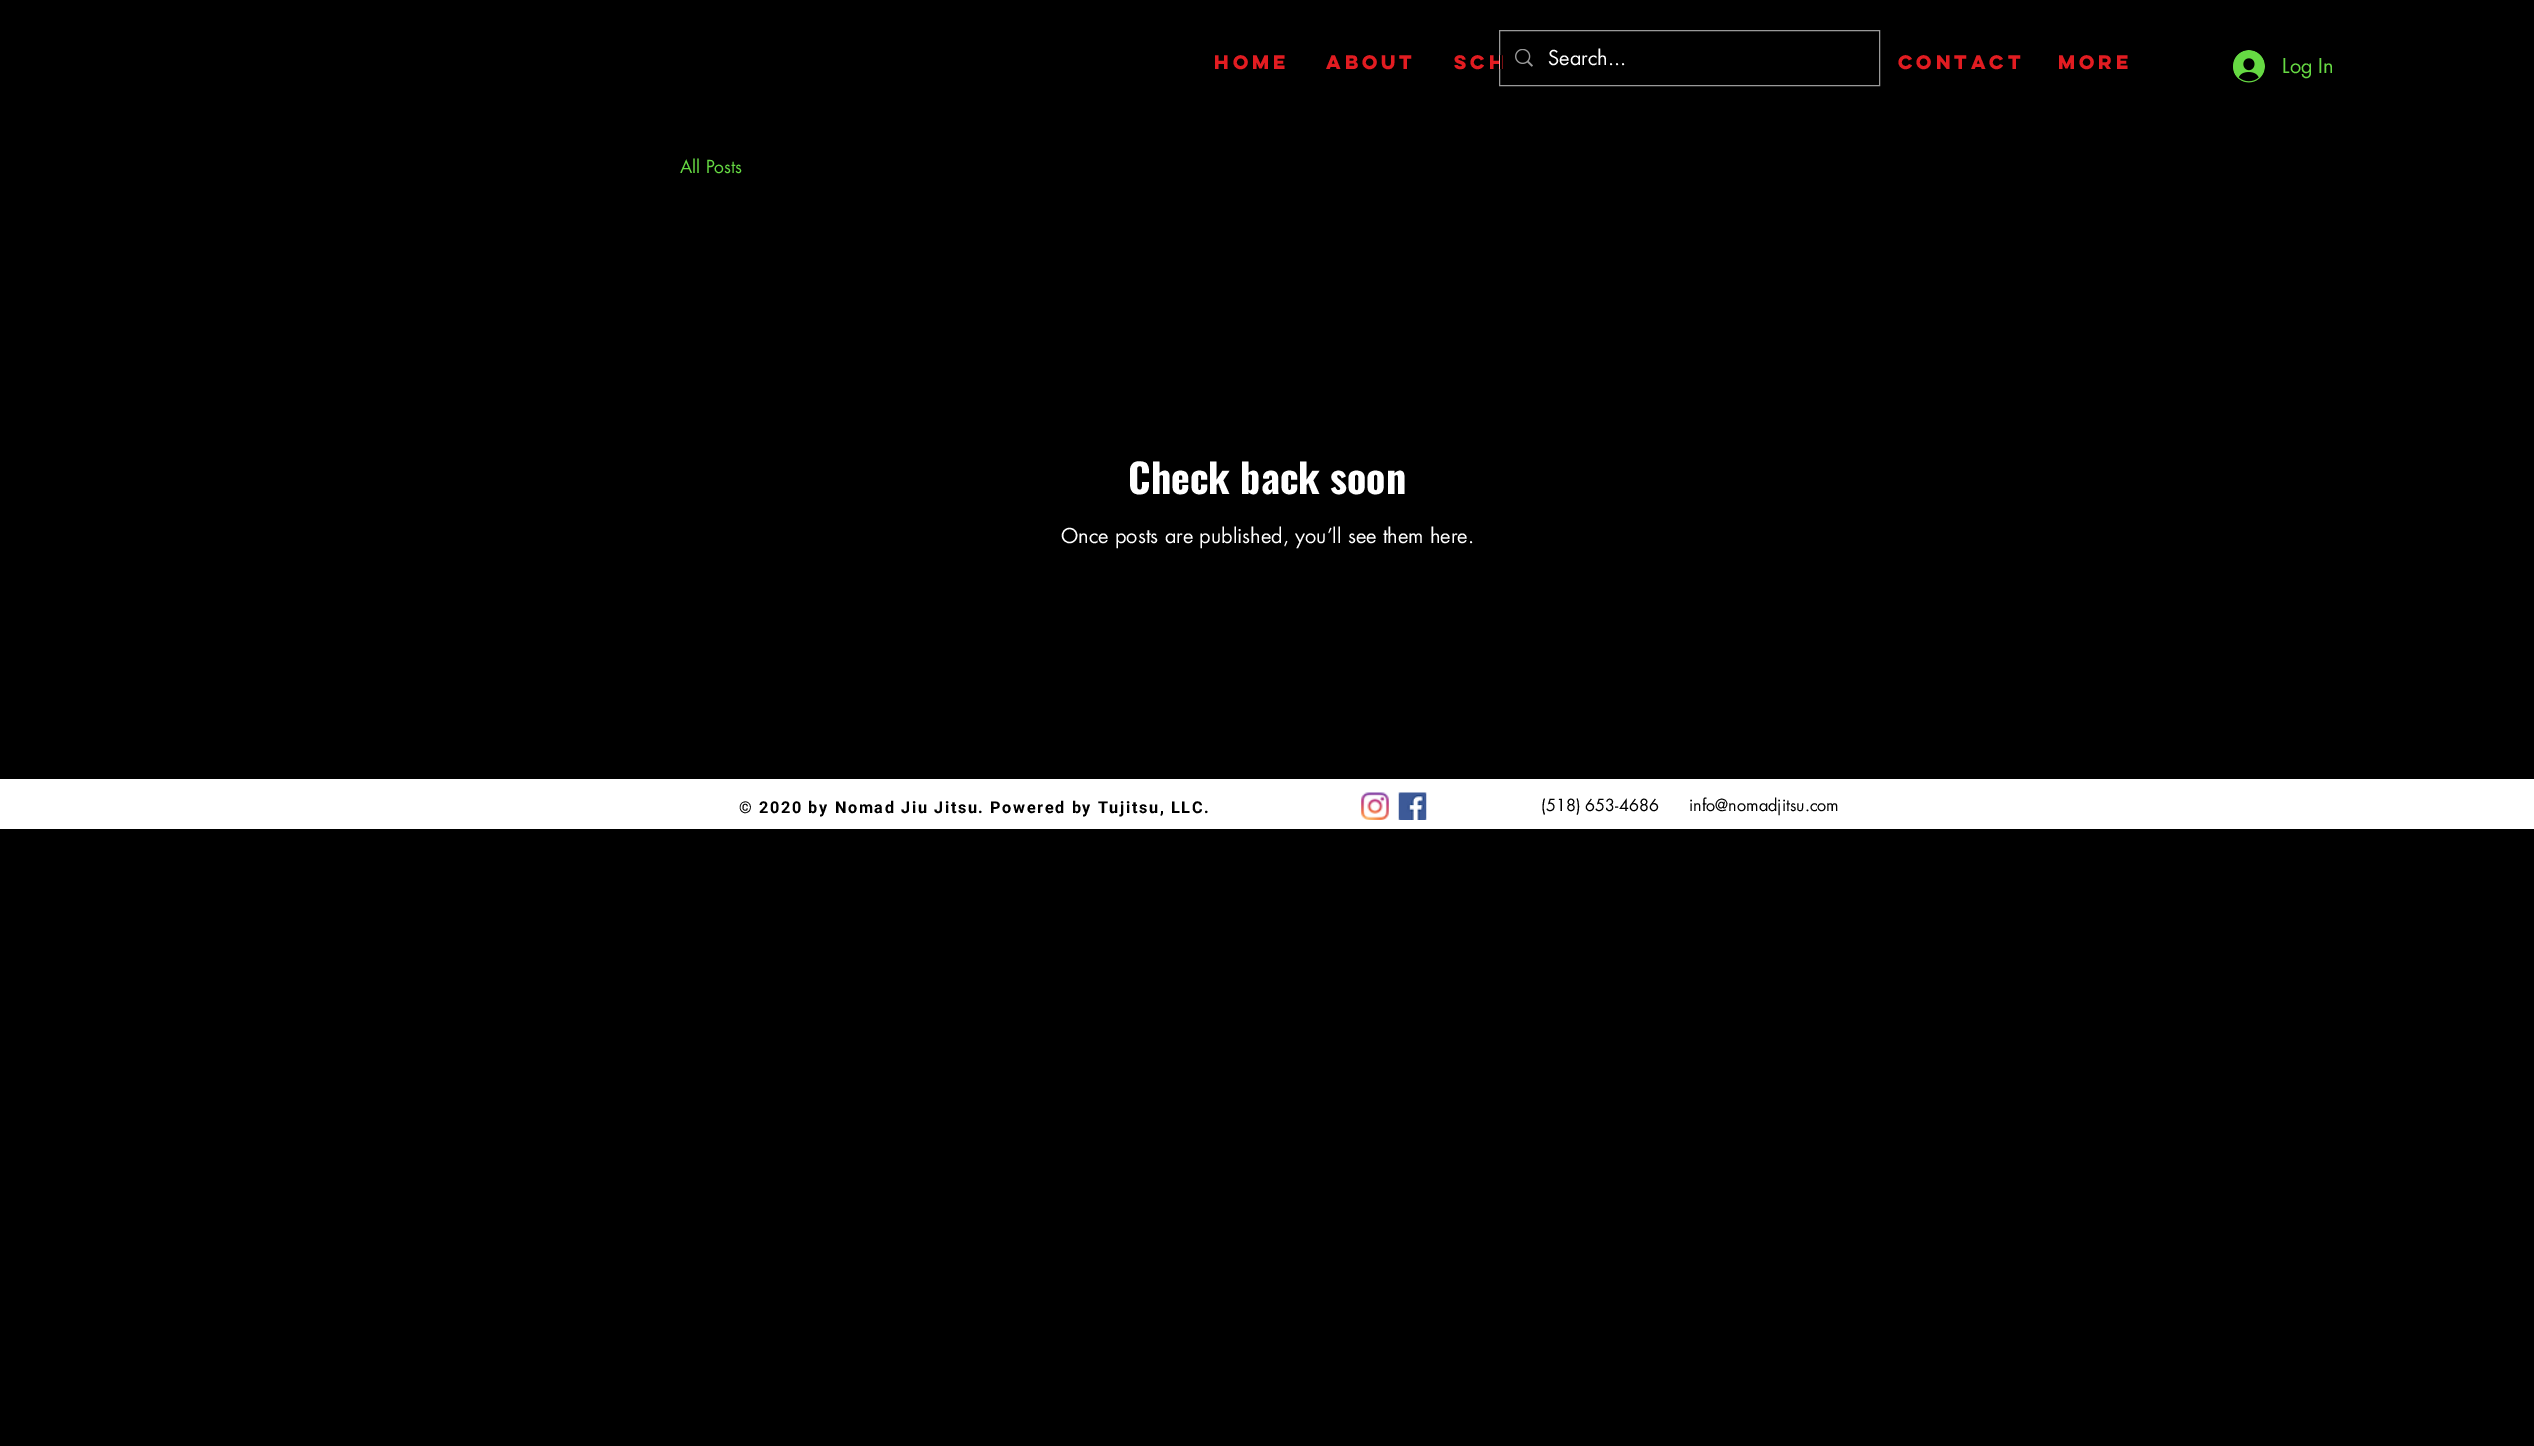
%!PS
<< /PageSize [2534 1446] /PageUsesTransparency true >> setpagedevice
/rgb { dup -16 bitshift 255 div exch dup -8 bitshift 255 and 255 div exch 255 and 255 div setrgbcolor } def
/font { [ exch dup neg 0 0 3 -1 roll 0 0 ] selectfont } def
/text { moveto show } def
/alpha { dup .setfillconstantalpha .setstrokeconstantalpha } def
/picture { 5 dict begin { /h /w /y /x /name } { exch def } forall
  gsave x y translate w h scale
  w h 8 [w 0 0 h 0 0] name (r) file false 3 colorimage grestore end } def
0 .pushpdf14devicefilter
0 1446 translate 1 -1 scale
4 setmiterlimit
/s1 { /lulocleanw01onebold-Bold 17.5 font 16#E21C21 rgb } def
/s2 { /futura-Regular 20 font 16#FFFFFF rgb } def
/s3 { /futura-Regular 20 font 16#66DA43 rgb } def
/s4 { /futura-Regular 17.5 font 16#66DA43 rgb } def
/s5 { /Oswald-Bold 40 font 16#FFFFFF rgb } def
/s6 { /futura-Regular 16.25 font 16#000000 rgb } def
16#000000 rgb
0 0 2534 1446 rectfill
s1
(SCH) 1454 69 text
0.6 alpha
16#FFFFFF rgb
1499.5 30.5 380 55 rectstroke
1 alpha
16#000000 rgb
1500 55 2 14 rectfill
(pic1.raw) 1515 49 18 18 picture
s2
(Search...) 1548 65 text
s1
(HOME) 1214 69 text
(ABOUT) 1326 69 text
(CONTACT) 1898 69 text
(More) 2058 69 text
(pic2.raw) 2233 50 32 33 picture
s3
(Log In) 2282 73 text
s4
(All Posts) 680 173 text
s5
(Check back soon) 1128 494 text
s2
(Once posts are published, you’ll see them here.) 1061 543 text
0 779 2534 50 rectfill
/Roboto-Bold 16.25 font
16#000000 rgb
739 813 moveto 1.62 0 (© 2020 by Nomad Jiu Jitsu. Powered by Tujitsu, LLC.) ashow
(pic3.raw) 1361 792 28 28 picture
(pic4.raw) 1398 792 29 28 picture
s6
(\(518\) 653-4686) 1541 811 text
(info@nomadjitsu.com) 1689 811 text
.poppdf14devicefilter showpage
